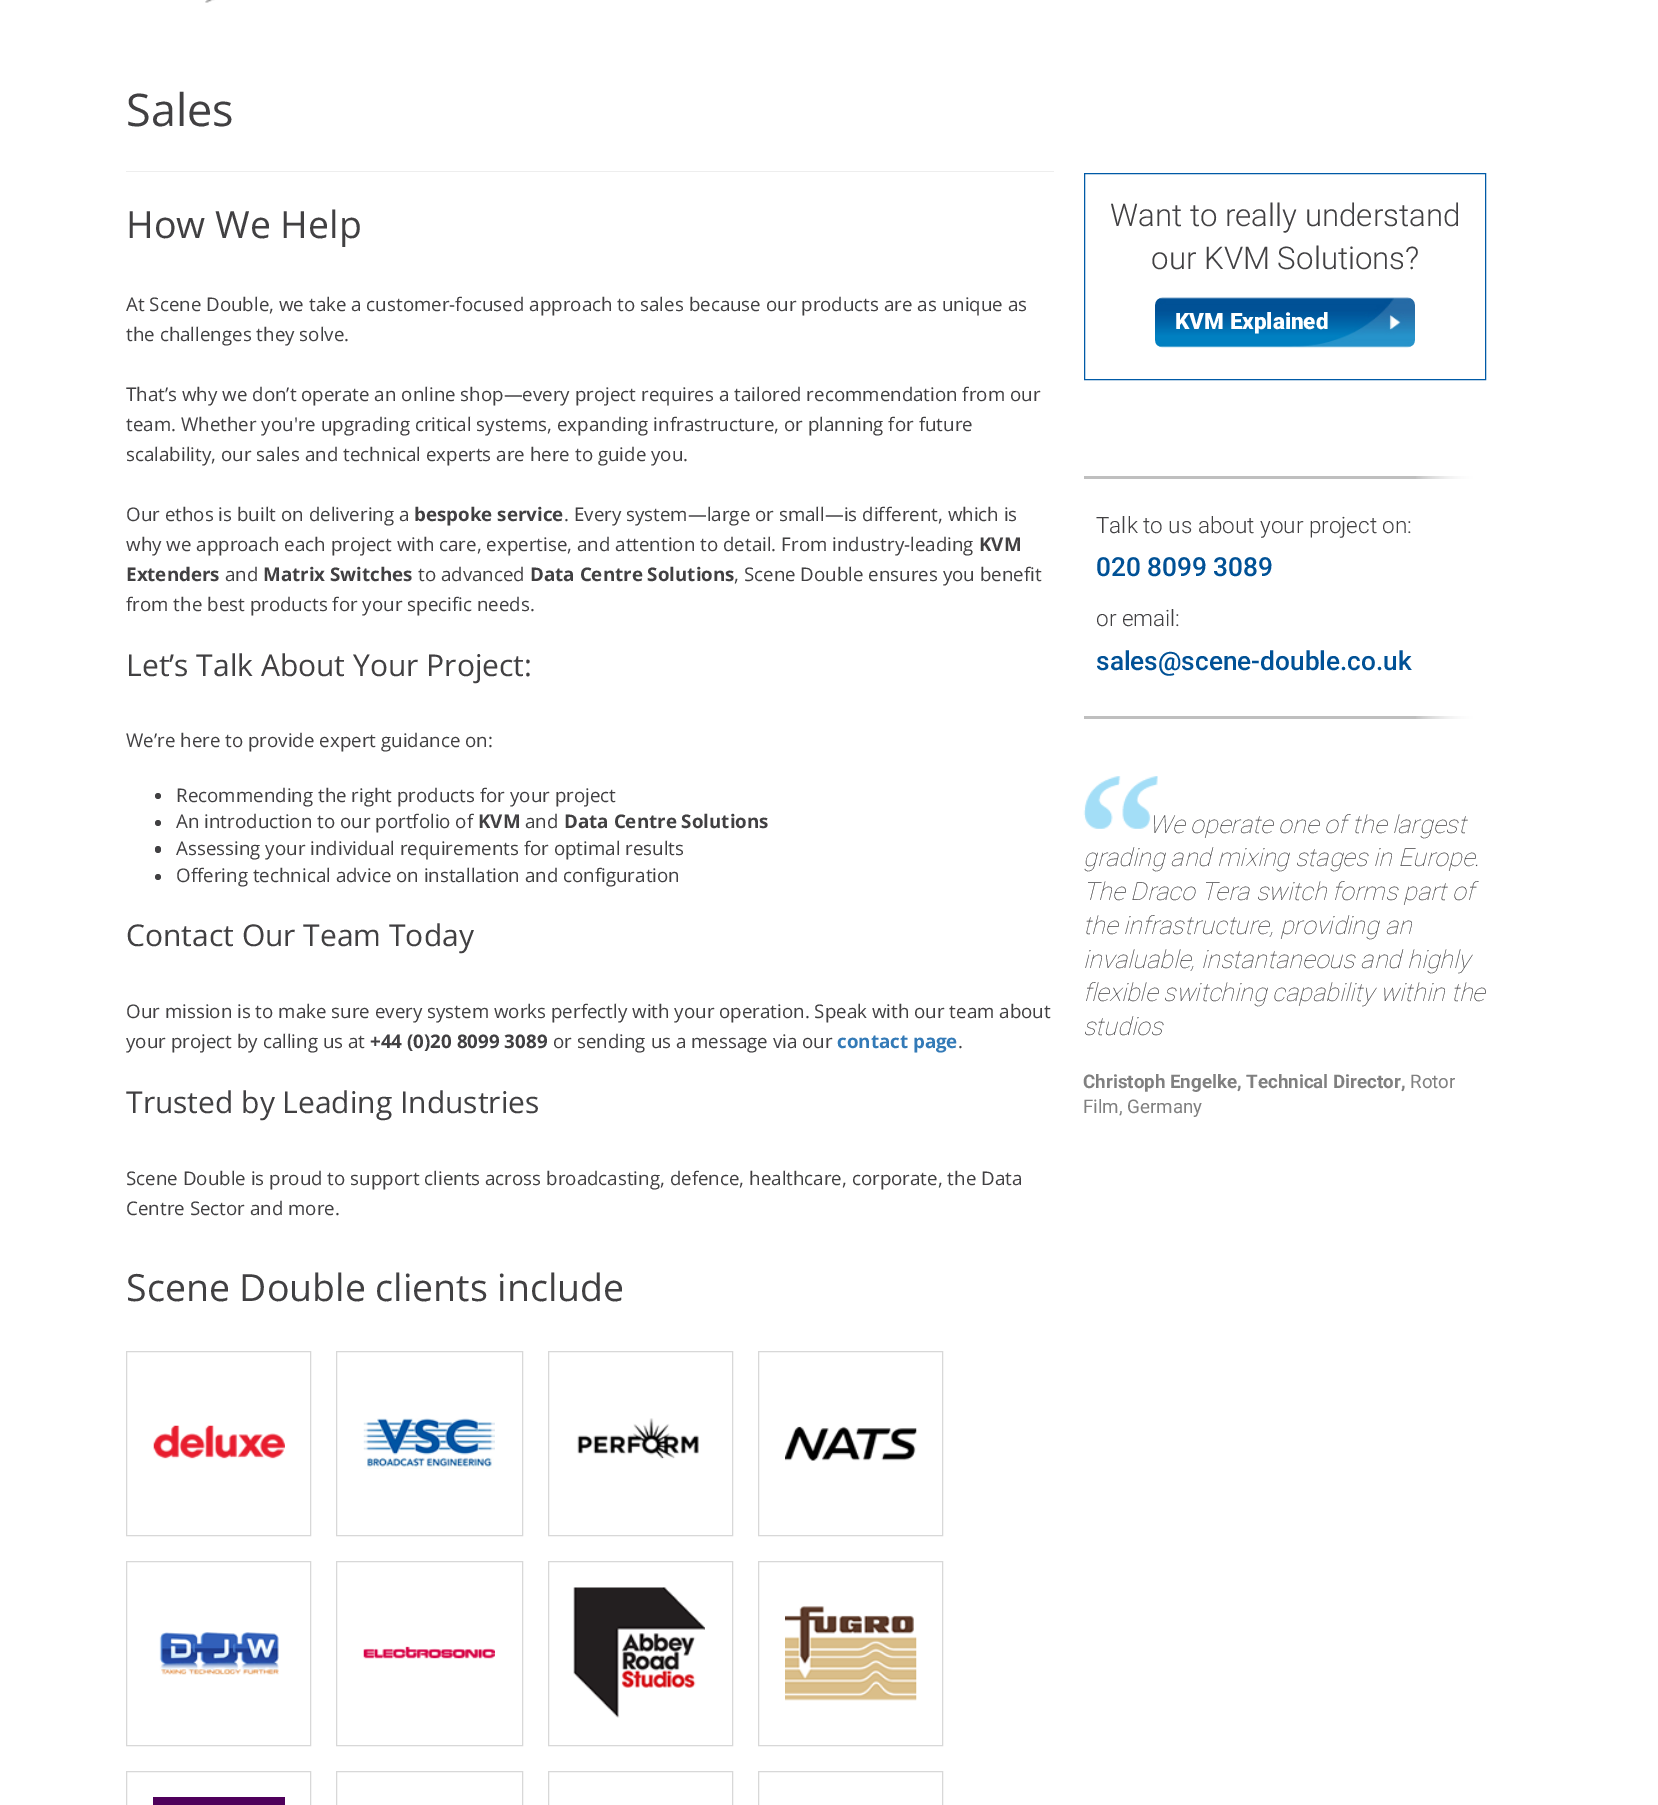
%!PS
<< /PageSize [1658 1805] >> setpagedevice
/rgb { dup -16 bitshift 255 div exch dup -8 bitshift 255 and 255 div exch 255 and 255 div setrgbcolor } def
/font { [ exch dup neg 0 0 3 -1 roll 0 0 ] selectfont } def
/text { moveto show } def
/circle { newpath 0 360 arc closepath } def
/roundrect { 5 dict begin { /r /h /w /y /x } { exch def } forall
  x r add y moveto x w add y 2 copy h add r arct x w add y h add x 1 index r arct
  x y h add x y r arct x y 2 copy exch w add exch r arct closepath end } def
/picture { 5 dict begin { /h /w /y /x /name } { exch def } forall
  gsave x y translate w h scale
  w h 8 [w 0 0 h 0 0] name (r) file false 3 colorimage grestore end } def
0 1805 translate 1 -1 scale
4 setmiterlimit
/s1 { /OpenSans-Regular 45 font 16#414042 rgb } def
/s2 { /OpenSans-Regular 37.5 font 16#414042 rgb } def
/s3 { /OpenSans-Regular 18.75 font 16#414042 rgb } def
/s4 { /OpenSans-Bold 18.75 font 16#414042 rgb } def
/s5 { /OpenSans-Regular 30 font 16#414042 rgb } def
/s6 { /OpenSans-Bold 18.75 font 16#337AB7 rgb } def
/s7 { /Roboto-Light 31.25 font 16#414042 rgb } def
/s8 { /Roboto-Black 22.5 font 16#FFFFFF rgb } def
/s9 { /Roboto-Light 22.5 font 16#414042 rgb } def
/s10 { /Roboto-Medium 26.25 font 16#005196 rgb } def
/s11 { /Roboto-ThinItalic 25 font 16#414042 rgb } def
/s12 { /Roboto-Bold 18.75 font 16#808080 rgb } def
/s13 { /Roboto-Regular 18.75 font 16#808080 rgb } def
16#FFFFFF rgb
0 0 1658 1805 rectfill
(pic1.raw) 205 0 10 3 picture
s1
(Sales) 126 126 text
16#EEEEEE rgb
126 171 928 1 rectfill
s2
(How We Help) 126 238 text
s3
(At Scene Double, we take a customer-focused approach to sales because our products are as unique as) 126 311 text
(the challenges they solve.) 126 341 text
(That’s why we don’t operate an online shop—every project requires a tailored recommendation from our) 126 401 text
(team. Whether you're upgrading critical systems, expanding infrastructure, or planning for future) 126 431 text
(scalability, our sales and technical experts are here to guide you.) 126 461 text
(Our ethos is built on delivering a) 126 521 text
s4
(bespoke service) 414 521 text
s3
(. Every system—large or small—is different, which is) 564 521 text
(why we approach each project with care, expertise, and attention to detail. From industry-leading) 126 551 text
s4
(KVM) 979 551 text
(Extenders) 126 581 text
s3
(and) 225 581 text
s4
(Matrix Switches) 263 581 text
s3
(to advanced) 418 581 text
s4
(Data Centre Solutions) 530 581 text
s3
(, Scene Double ensures you benefit) 734 581 text
(from the best products for your specific needs.) 126 611 text
s5
(Let’s Talk About Your Project:) 126 676 text
s3
(We’re here to provide expert guidance on:) 126 747 text
158 796 3 circle fill
(Recommending the right products for your project) 176 802 text
158 823 3 circle fill
(An introduction to our portfolio of) 176 828 text
s4
(KVM) 478 828 text
s3
(and) 525 828 text
s4
(Data Centre Solutions) 564 828 text
155 846 6 7 3 roundrect fill
s3
(Assessing your individual requirements for optimal results) 176 855 text
158 877 3 circle fill
(Offering technical advice on installation and configuration) 176 882 text
s5
(Contact Our Team Today) 126 946 text
s3
(Our mission is to make sure every system works perfectly with your operation. Speak with our team about) 126 1018 text
(your project by calling us at) 126 1048 text
s4
(+44 \(0\)20 8099 3089) 370 1048 text
s3
(or sending us a message via our) 553 1048 text
s6
(contact page) 837 1048 text
s3
(.) 958 1048 text
s5
(Trusted by Leading Industries) 126 1113 text
s3
(Scene Double is proud to support clients across broadcasting, defence, healthcare, corporate, the Data) 126 1185 text
(Centre Sector and more.) 126 1215 text
s2
(Scene Double clients include) 126 1301 text
16#D8D8D8 rgb
126.5 1351.5 184 184 rectstroke
(pic2.raw) 153 1425 132 34 picture
336.5 1351.5 186 184 rectstroke
(pic3.raw) 363 1418 132 51 picture
548.5 1351.5 184 184 rectstroke
(pic4.raw) 577 1418 122 41 picture
758.5 1351.5 184 184 rectstroke
(pic5.raw) 785 1426 132 35 picture
126.5 1561.5 184 184 rectstroke
(pic6.raw) 159 1632 120 43 picture
336.5 1561.5 186 184 rectstroke
(pic7.raw) 363 1646 132 13 picture
548.5 1561.5 184 184 rectstroke
(pic8.raw) 573 1587 132 131 picture
758.5 1561.5 184 184 rectstroke
(pic9.raw) 785 1606 132 95 picture
126.5 1771.5 184 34 rectstroke
16#4F005B rgb
153 1797 132 8 rectfill
16#D8D8D8 rgb
336.5 1771.5 186 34 rectstroke
548.5 1771.5 184 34 rectstroke
758.5 1771.5 184 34 rectstroke
16#005AA7 rgb
1084.5 173.5 401 206 rectstroke
s7
(Want to really understand) 1110 226 text
(our KVM Solutions?) 1151 269 text
(pic10.raw) 1155 297 260 51 picture
s8
(KVM Explained) 1175 329 text
16#BFBFBF rgb
1084 476 389 3 rectfill
1084 716 389 3 rectfill
s9
(Talk to us about your project on:) 1096 533 text
s10
(020 8099 3089) 1096 576 text
s9
(or email:) 1096 626 text
s10
(sales@scene-double.co.uk) 1096 670 text
(pic11.raw) 1416 476 70 243 picture
(pic12.raw) 1083 776 75 53 picture
s11
(We operate one of the largest) 1149 833 text
(grading and mixing stages in Europe.) 1083 866 text
(The Draco Tera switch forms part of) 1083 900 text
(the infrastructure, providing an) 1083 934 text
(invaluable, instantaneous and highly) 1083 968 text
(flexible switching capability within the) 1083 1001 text
(studios) 1083 1035 text
s12
(Christoph Engelke, Technical Director,) 1083 1088 text
s13
(Rotor) 1410 1088 text
(Film, Germany) 1083 1113 text
showpage
